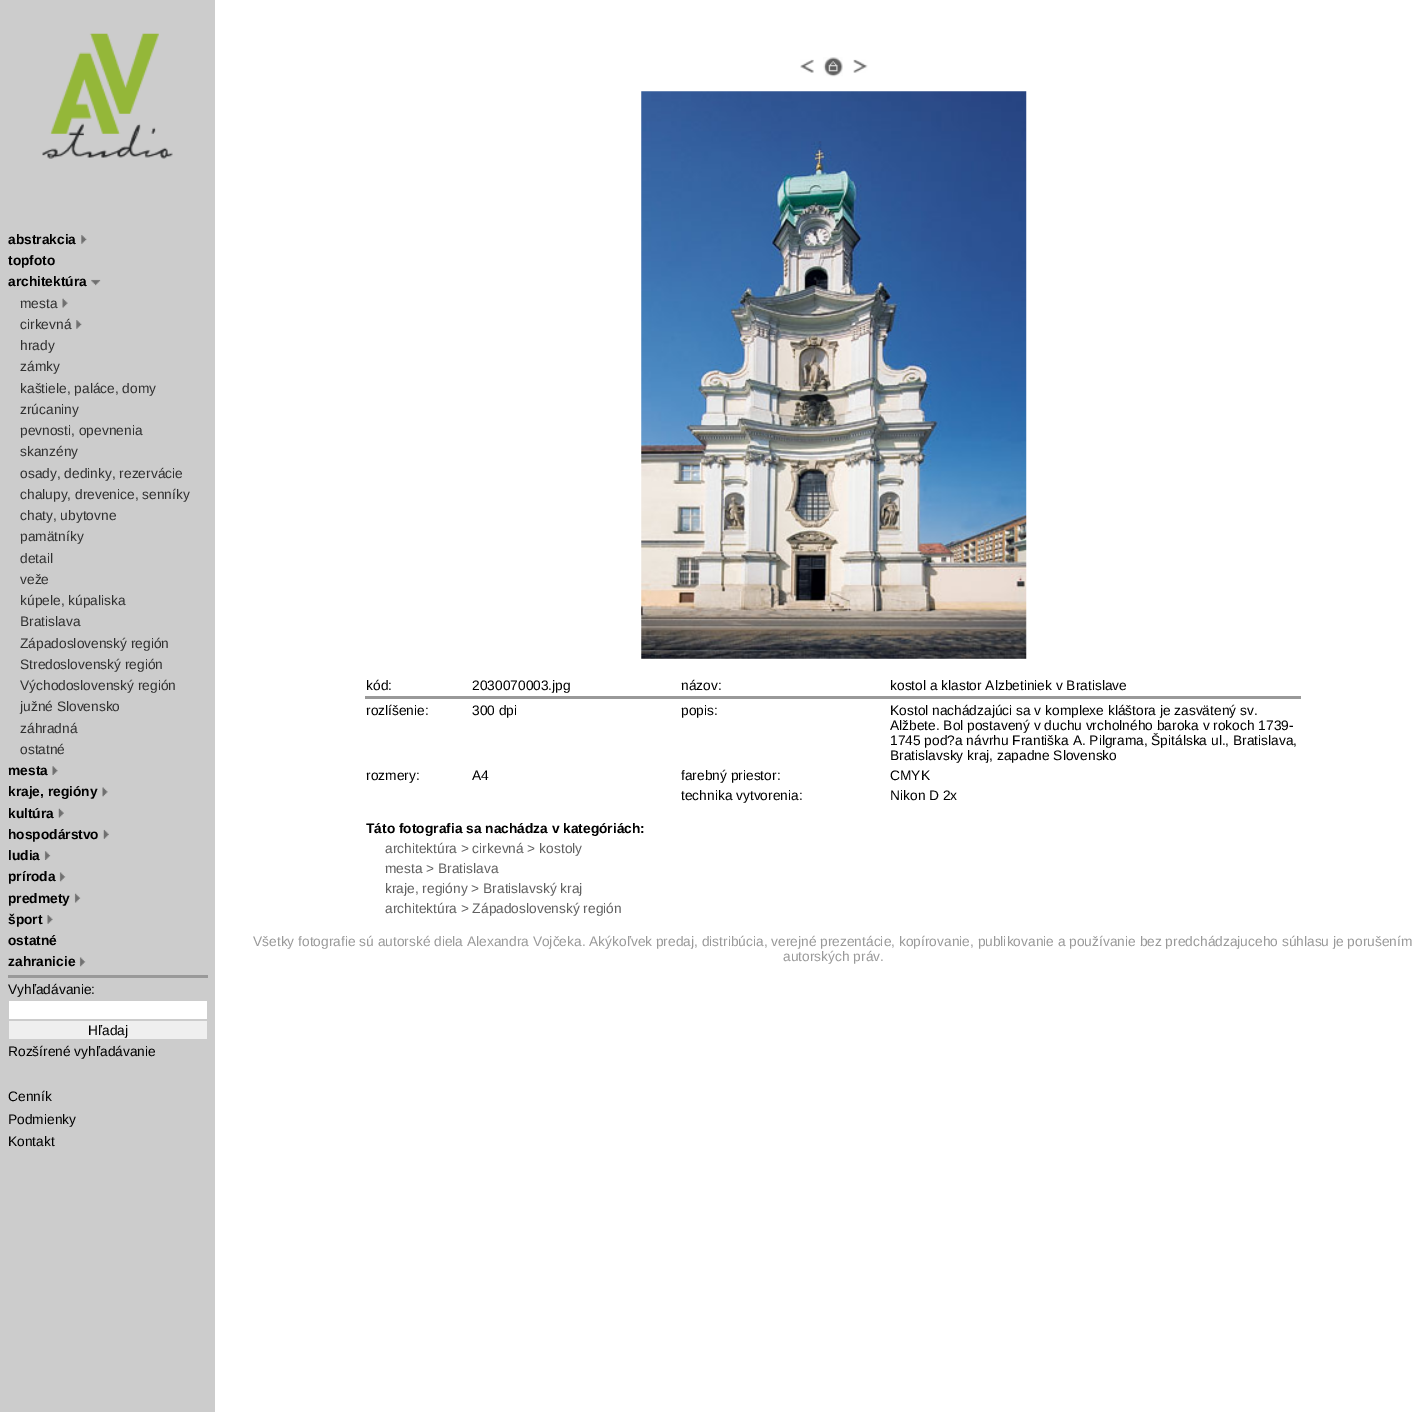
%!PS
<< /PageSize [1428 1412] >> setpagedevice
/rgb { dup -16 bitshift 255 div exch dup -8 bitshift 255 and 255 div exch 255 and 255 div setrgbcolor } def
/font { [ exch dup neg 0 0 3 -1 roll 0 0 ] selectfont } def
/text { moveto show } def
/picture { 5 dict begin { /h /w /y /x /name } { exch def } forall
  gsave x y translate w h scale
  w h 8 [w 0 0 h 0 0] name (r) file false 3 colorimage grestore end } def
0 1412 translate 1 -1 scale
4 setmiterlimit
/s1 { /LiberationSans-Bold 13.75 font 16#000000 rgb } def
/s2 { /LiberationSans-Regular 13.75 font 16#303030 rgb } def
/s3 { /LiberationSans-Regular 13.75 font 16#000000 rgb } def
/s4 { /LiberationSans-Regular 13.75 font 16#606060 rgb } def
/s5 { /LiberationSans-Regular 13.75 font 16#999999 rgb } def
16#FFFFFF rgb
0 0 1428 1412 rectfill
16#CCCCCC rgb
0 0 215 1412 rectfill
(pic1.raw) 42 33 131 126 picture
s1
(abstrakcia) 8 244 text
(pic2.raw) 81 235 6 9 picture
(topfoto) 8 265 text
(architektúra) 8 286 text
(pic3.raw) 91 279 10 7 picture
s2
(mesta) 20 308 text
(pic4.raw) 62 298 6 10 picture
(cirkevná) 20 329 text
(pic2.raw) 76 320 6 9 picture
(hrady) 20 350 text
(zámky) 20 371 text
(kaštiele, paláce, domy) 20 393 text
(zrúcaniny) 20 414 text
(pevnosti, opevnenia) 20 435 text
(skanzény) 20 456 text
(osady, dedinky, rezervácie) 20 478 text
(chalupy, drevenice, senníky) 20 499 text
(chaty, ubytovne) 20 520 text
(pamätníky) 20 541 text
(detail) 20 563 text
(veže) 20 584 text
(kúpele, kúpaliska) 20 605 text
(Bratislava) 20 626 text
(Západoslovenský región) 20 648 text
(Stredoslovenský región) 20 669 text
(Východoslovenský región) 20 690 text
(južné Slovensko) 20 711 text
(záhradná) 20 733 text
(ostatné) 20 754 text
s1
(mesta) 8 775 text
(pic5.raw) 52 766 6 9 picture
(kraje, regióny) 8 796 text
(pic6.raw) 102 787 6 10 picture
(kultúra) 8 818 text
(pic7.raw) 58 808 6 10 picture
(hospodárstvo) 8 839 text
(pic8.raw) 103 829 6 10 picture
(ludia) 8 860 text
(pic9.raw) 44 851 7 9 picture
(príroda) 8 881 text
(pic10.raw) 59 872 7 10 picture
(predmety) 8 903 text
(pic11.raw) 74 893 7 10 picture
(šport) 8 924 text
(pic12.raw) 47 915 6 9 picture
(ostatné) 8 945 text
(zahranicie) 8 966 text
(pic10.raw) 79 957 7 10 picture
16#999999 rgb
8 975 200 3 rectfill
s3
(Vyhľadávanie:) 8 994 text
16#FFFFFF rgb
9 1001 198 18 rectfill
16#EFEFEF rgb
9 1021 198 18 rectfill
s3
(Hľadaj) 88 1035 text
(Rozšírené vyhľadávanie) 8 1056 text
(Cenník) 8 1101 text
(Podmienky) 8 1124 text
(Kontakt) 8 1146 text
(pic13.raw) 800 59 14 14 picture
(pic14.raw) 823 57 20 20 picture
(pic15.raw) 853 59 15 14 picture
(pic16.raw) 641 91 386 568 picture
(kód:) 366 690 text
(2030070003.jpg) 472 690 text
(názov:) 681 690 text
(kostol a klastor Alzbetiniek v Bratislave) 890 690 text
16#999999 rgb
365 696 936 3 rectfill
s3
(rozlíšenie:) 366 715 text
(300 dpi) 472 715 text
(popis:) 681 715 text
(Kostol nachádzajúci sa v komplexe kláštora je zasvätený sv.) 890 715 text
(Alžbete. Bol postavený v duchu vrcholného baroka v rokoch 1739-) 890 730 text
(1745 pod?a návrhu Františka A. Pilgrama, Špitálska ul., Bratislava,) 890 745 text
(Bratislavsky kraj, zapadne Slovensko) 890 760 text
(rozmery:) 366 780 text
(A4) 472 780 text
(farebný priestor:) 681 780 text
(CMYK) 890 780 text
(technika vytvorenia:) 681 800 text
(Nikon D 2x) 890 800 text
s1
(Táto fotografia sa nachádza v kategóriách:) 366 833 text
s4
(architektúra > cirkevná > kostoly) 385 853 text
(mesta > Bratislava) 385 873 text
(kraje, regióny > Bratislavský kraj) 385 893 text
(architektúra > Západoslovenský región) 385 913 text
s5
(Všetky fotografie sú autorské diela Alexandra Vojčeka. Akýkoľvek predaj, distribúcia, verejné prezentácie, kopírovanie, publikovanie a používanie bez predchádzajuceho súhlasu je porušením) 253 946 text
(autorských práv.) 783 961 text
showpage
